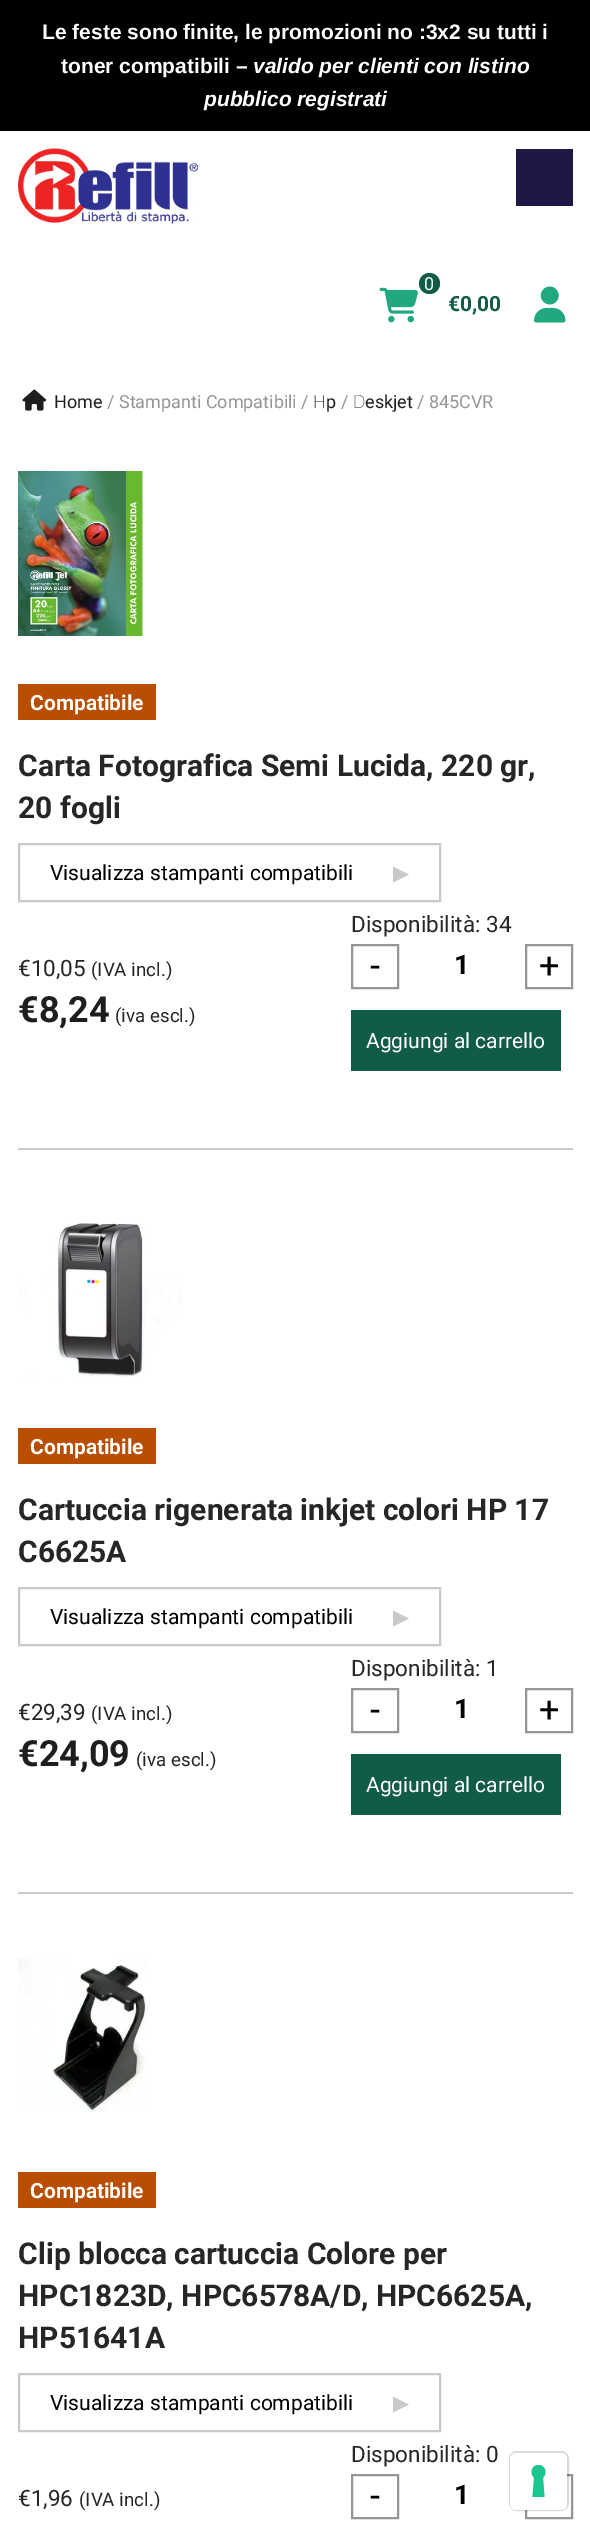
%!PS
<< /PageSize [590 2533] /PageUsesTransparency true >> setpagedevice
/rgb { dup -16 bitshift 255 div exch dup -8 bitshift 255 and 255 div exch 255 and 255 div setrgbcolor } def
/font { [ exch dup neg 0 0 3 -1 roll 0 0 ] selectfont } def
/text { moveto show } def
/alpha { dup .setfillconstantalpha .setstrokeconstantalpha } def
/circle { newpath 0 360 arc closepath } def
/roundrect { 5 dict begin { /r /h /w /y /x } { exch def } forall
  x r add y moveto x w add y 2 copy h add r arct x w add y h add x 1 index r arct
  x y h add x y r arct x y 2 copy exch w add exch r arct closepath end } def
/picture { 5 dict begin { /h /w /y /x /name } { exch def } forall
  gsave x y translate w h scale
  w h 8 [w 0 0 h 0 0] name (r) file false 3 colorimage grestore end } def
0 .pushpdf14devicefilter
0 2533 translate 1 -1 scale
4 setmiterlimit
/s1 { /LiberationSans-Bold 21 font 16#FFFFFF rgb } def
/s2 { /LiberationSans-BoldItalic 21 font 16#FFFFFF rgb } def
/s3 { /Roboto-Regular 18 font 16#FFFFFF rgb } def
/s4 { /Roboto-Bold 21 font 16#105C46 rgb } def
/s5 { /Roboto-Regular 18 font 16#1E1E1E rgb } def
/s6 { /Roboto-Regular 18 font 16#959595 rgb } def
/s7 { /NotoSans-ExtraLight 18 font 16#1E1E1E rgb } def
/s8 { /NotoSans-Thin 18 font 16#1E1E1E rgb } def
/s9 { /Roboto-Bold 21 font 16#FFFFFF rgb } def
/s10 { /Roboto-Bold 30 font 16#272626 rgb } def
/s11 { /Roboto-Regular 21 font 16#000000 rgb } def
/s12 { /DejaVuSans-Regular 21 font 16#C9C9C9 rgb } def
/s13 { /Roboto-Regular 22.5 font 16#272626 rgb } def
/s14 { /Roboto-Regular 18.75 font 16#272626 rgb } def
/s15 { /Roboto-Bold 36 font 16#1E1E1E rgb } def
/s16 { /Roboto-Regular 36 font 16#000000 rgb } def
/s17 { /Roboto-Bold 27 font 16#000000 rgb } def
/s18 { /Roboto-Regular 21 font 16#FFFFFF rgb } def
16#FFFFFF rgb
0 0 590 2533 rectfill
16#000000 rgb
0 0 590 131 rectfill
s1
(Le feste sono finite, le promozioni no :3x2 su tutti i) 42 39 text
(toner compatibili –) 61 73 text
s2
(valido per clienti con listino) 253 73 text
(pubblico registrati) 204 106 text
(pic1.raw) 18 148 180 76 picture
16#1E1847 rgb
516 149 57 57 rectfill
16#105C46 rgb
429.5 283.5 10.5 circle fill
s3
(0) 424 290 text
(pic2.raw) 379 287 39 36 picture
s4
(€0,00) 448 311 text
(pic3.raw) 534 286 32 37 picture
(pic4.raw) 22 389 25 22 picture
s5
(Home) 54 408 text
s6
(/ Stampanti Compatibili /) 107 408 text
s7
(H) 313 408 text
s5
(p) 326 408 text
s6
(/) 341 408 text
s8
(D) 353 408 text
s5
(eskjet) 365 408 text
s6
(/ 845CVR) 417 408 text
16#C9C9C9 rgb
18 1148 555 2 rectfill
(pic5.raw) 18 471 125 165 picture
16#B94E00 rgb
18 684 138 36 rectfill
s9
(Compatibile) 30 710 text
s10
(Carta Fotografica Semi Lucida, 220 gr,) 18 776 text
(20 fogli) 18 818 text
16#C9C9C9 rgb
2 setlinewidth
19 844 421 57 rectstroke
s11
(Visualizza stampanti compatibili) 50 880 text
s12
(▶) 393 880 text
s13
(€10,05) 18 976 text
s14
(\(IVA incl.\)) 91 976 text
s15
(€8,24) 18 1022 text
s14
(\(iva escl.\)) 115 1022 text
s13
(Disponibilità: 34) 351 932 text
16#959595 rgb
352 945 46 43 rectstroke
s16
(-) 370 978 text
s17
(1) 454 974 text
16#959595 rgb
526 945 46 43 rectstroke
s16
(+) 539 978 text
16#105C46 rgb
351 1010 210 61 rectfill
s18
(Aggiungi al carrello) 366 1048 text
16#C9C9C9 rgb
18 1892 555 2 rectfill
(pic6.raw) 18 1223 165 157 picture
16#B94E00 rgb
18 1428 138 36 rectfill
s9
(Compatibile) 30 1454 text
s10
(Cartuccia rigenerata inkjet colori HP 17) 18 1520 text
(C6625A) 18 1562 text
16#C9C9C9 rgb
19 1588 421 57 rectstroke
s11
(Visualizza stampanti compatibili) 50 1624 text
s12
(▶) 393 1624 text
s13
(€29,39) 18 1720 text
s14
(\(IVA incl.\)) 91 1720 text
s15
(€24,09) 18 1766 text
s14
(\(iva escl.\)) 136 1766 text
s13
(Disponibilità: 1) 351 1676 text
16#959595 rgb
352 1689 46 43 rectstroke
s16
(-) 370 1722 text
s17
(1) 454 1718 text
16#959595 rgb
526 1689 46 43 rectstroke
s16
(+) 539 1722 text
16#105C46 rgb
351 1754 210 61 rectfill
s18
(Aggiungi al carrello) 366 1792 text
(pic7.raw) 18 1959 130 153 picture
16#B94E00 rgb
18 2172 138 36 rectfill
s9
(Compatibile) 30 2198 text
s10
(Clip blocca cartuccia Colore per) 18 2264 text
(HPC1823D, HPC6578A/D, HPC6625A,) 18 2306 text
(HP51641A) 18 2348 text
16#C9C9C9 rgb
19 2374 421 57 rectstroke
s11
(Visualizza stampanti compatibili) 50 2410 text
s12
(▶) 393 2410 text
s13
(€1,96) 18 2506 text
s14
(\(IVA incl.\)) 79 2506 text
s13
(Disponibilità: 0) 351 2462 text
16#959595 rgb
352 2475 46 43 rectstroke
s16
(-) 370 2508 text
s17
(1) 454 2504 text
16#959595 rgb
526 2475 46 43 rectstroke
0.15 alpha
16#000000 rgb
510 2452 58 58 7 roundrect stroke
1 alpha
16#FFFFFF rgb
510 2453 57 57 6 roundrect fill
16#1CC691 rgb
538.5 2465 moveto 545 2465 548 2473 543 2477.5 curveto 544.5 2497 lineto 532.5 2497 lineto 534 2477.5 lineto 529 2473 532 2465 538.5 2465 curveto closepath eofill
.poppdf14devicefilter showpage
